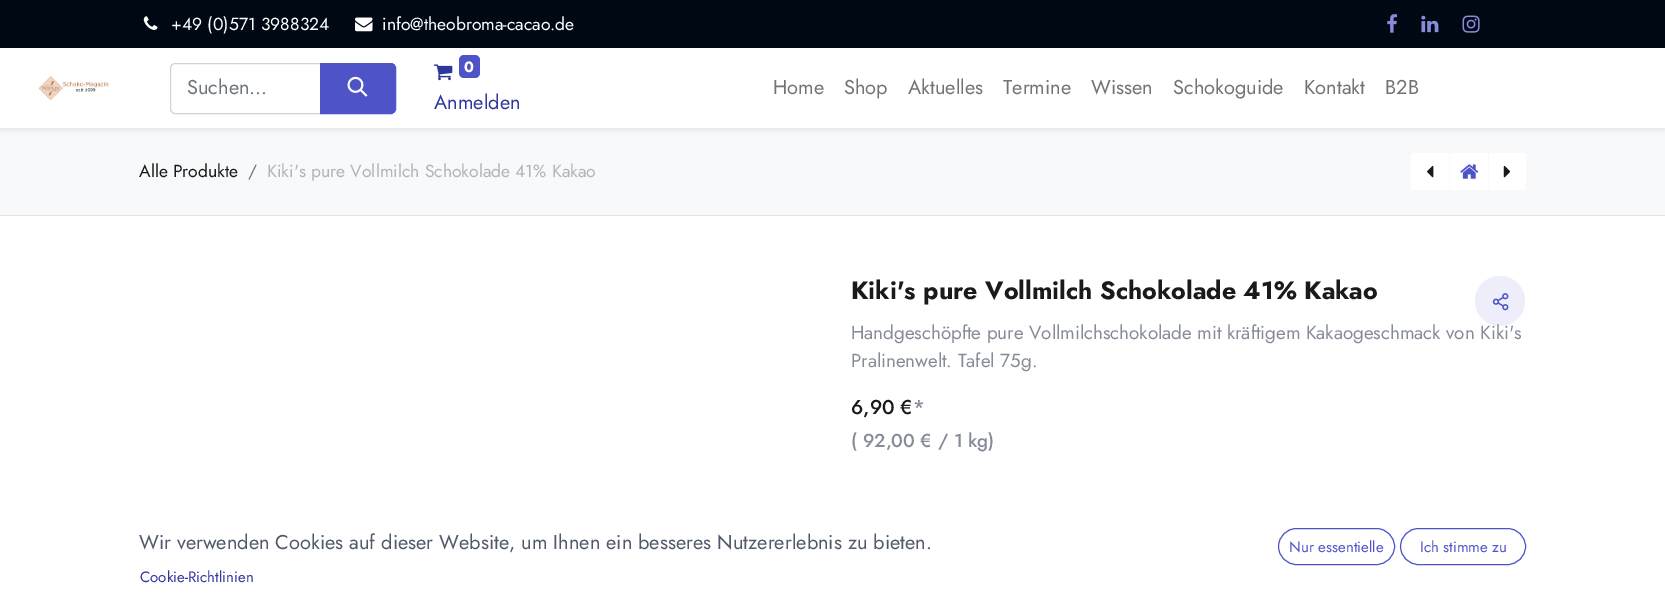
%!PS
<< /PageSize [1665 614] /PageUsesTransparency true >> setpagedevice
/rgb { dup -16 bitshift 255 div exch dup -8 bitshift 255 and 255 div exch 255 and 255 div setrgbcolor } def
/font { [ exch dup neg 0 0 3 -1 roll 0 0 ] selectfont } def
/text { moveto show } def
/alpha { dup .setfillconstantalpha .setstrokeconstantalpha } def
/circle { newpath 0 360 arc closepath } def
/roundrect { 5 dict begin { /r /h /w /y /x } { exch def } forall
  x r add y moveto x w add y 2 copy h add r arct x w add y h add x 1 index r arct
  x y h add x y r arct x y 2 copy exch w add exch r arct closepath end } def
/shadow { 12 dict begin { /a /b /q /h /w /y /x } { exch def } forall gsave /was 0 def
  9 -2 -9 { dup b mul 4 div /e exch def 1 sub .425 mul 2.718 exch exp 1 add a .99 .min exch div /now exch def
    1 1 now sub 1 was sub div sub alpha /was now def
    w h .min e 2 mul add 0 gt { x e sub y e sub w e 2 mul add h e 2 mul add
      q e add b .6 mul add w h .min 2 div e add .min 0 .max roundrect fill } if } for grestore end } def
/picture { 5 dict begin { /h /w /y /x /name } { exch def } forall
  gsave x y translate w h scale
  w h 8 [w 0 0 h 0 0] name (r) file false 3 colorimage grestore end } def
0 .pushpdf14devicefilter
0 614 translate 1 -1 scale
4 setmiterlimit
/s1 { /Jost-Regular 17.5 font 16#FFFFFF rgb } def
/s2 { /Jost-Regular 20 font 16#6C757D rgb } def
/s3 { /Jost-Bold 15 font 16#FFFFFF rgb } def
/s4 { /Jost-Regular 20 font 16#31369E rgb } def
/s5 { /Jost-Regular 20 font 16#737373 rgb } def
/s6 { /Jost-Regular 17.5 font 16#1A1A1A rgb } def
/s7 { /Jost-Regular 17.5 font 16#6C757D rgb } def
/s8 { /Jost-Regular 17.5 font 16#ADB5BD rgb } def
/s9 { /Jost-Bold 25 font 16#1A1A1A rgb } def
/s10 { /Jost-Regular 18.75 font 16#858B98 rgb } def
/s11 { /Jost-Medium 20 font 16#1A1A1A rgb } def
/s12 { /Jost-Medium 20 font 16#858B98 rgb } def
/s13 { /Jost-Medium 18.75 font 16#858B98 rgb } def
/s14 { /Jost-Regular 20 font 16#51596C rgb } def
/s15 { /Jost-Regular 15 font 16#31369E rgb } def
/s16 { /Jost-Regular 15 font 16#4E54C8 rgb } def
16#FFFFFF rgb
0 0 1665 614 rectfill
16#000814 rgb
0 0 1665 48 rectfill
(pic1.raw) 143 16 15 14 picture
s1
(+49 \(0\)571 3988324) 171 30 text
(pic2.raw) 355 17 18 15 picture
(info@theobroma-cacao.de) 382 30 text
(pic3.raw) 1387 14 10 19 picture
(pic4.raw) 1421 15 18 18 picture
(pic5.raw) 1462 15 18 18 picture
16#F8F9FA rgb
0 128 1665 87 rectfill
16#000000 rgb
0 50 1665 80 0 2.5 0.07 shadow
16#FFFFFF rgb
0 48 1665 80 rectfill
(pic6.raw) 38 76 71 24 picture
16#CED4DA rgb
175 63.5 moveto 320.5 63.5 lineto 320.5 113.5 lineto 175 113.5 lineto 172.5 113.5 170.5 111.5 170.5 109 curveto 170.5 68 lineto 170.5 65.5 172.5 63.5 175 63.5 curveto closepath stroke
s2
(Suchen…) 187 94 text
16#4E54C8 rgb
320.5 63.5 moveto 391 63.5 lineto 393.5 63.5 395.5 65.5 395.5 68 curveto 395.5 109 lineto 395.5 111.5 393.5 113.5 391 113.5 curveto 320.5 113.5 lineto closepath gsave fill grestore
stroke
(pic7.raw) 347 76 21 21 picture
(pic8.raw) 433 64 20 17 picture
459 55 21 23 5 roundrect fill
s3
(0) 464 72 text
s4
(Anmelden) 434 109 text
s5
(Home) 773 94 text
(Shop) 844 94 text
(Aktuelles) 908 94 text
(Termine) 1003 94 text
(Wissen) 1091 94 text
(Schokoguide) 1173 94 text
(Kontakt) 1304 94 text
(B2B) 1385 94 text
16#DEE2E6 rgb
0 215 1665 1 rectfill
s6
(Alle Produkte) 139 177 text
s7
(/) 248 177 text
s8
(Kiki's pure Vollmilch Schokolade 41% Kakao) 267 177 text
16#FFFFFF rgb
1411 153 38 37 rectfill
(pic9.raw) 1427 165 7 13 picture
1450 153 38 37 rectfill
(pic10.raw) 1460 164 19 15 picture
1489 153 37 37 rectfill
(pic11.raw) 1503 165 8 13 picture
s9
(Kiki's pure Vollmilch Schokolade 41% Kakao) 851 299 text
0.1 alpha
16#4E54C8 rgb
1500 301 25 circle fill
1 alpha
(pic12.raw) 1492 293 17 18 picture
s10
(Handgeschöpfte pure Vollmilchschokolade mit kräftigem Kakaogeschmack von Kiki's) 851 339 text
(Pralinenwelt. Tafel 75g.) 851 367 text
s11
(6,90 €) 851 414 text
s12
(*) 913 414 text
s13
(\( 92,00 € / 1 kg\)) 851 447 text
s14
(Wir verwenden Cookies auf dieser Website, um Ihnen ein besseres Nutzererlebnis zu bieten.) 139 549 text
s15
(Cookie-Richtlinien) 140 582 text
16#4E54C8 rgb
1278.5 528.5 116 36 18 roundrect stroke
(Nur essentielle) 1289 552 text
1400.5 528.5 125 36 18 roundrect stroke
(Ich stimme zu) 1420 552 text
.poppdf14devicefilter showpage
